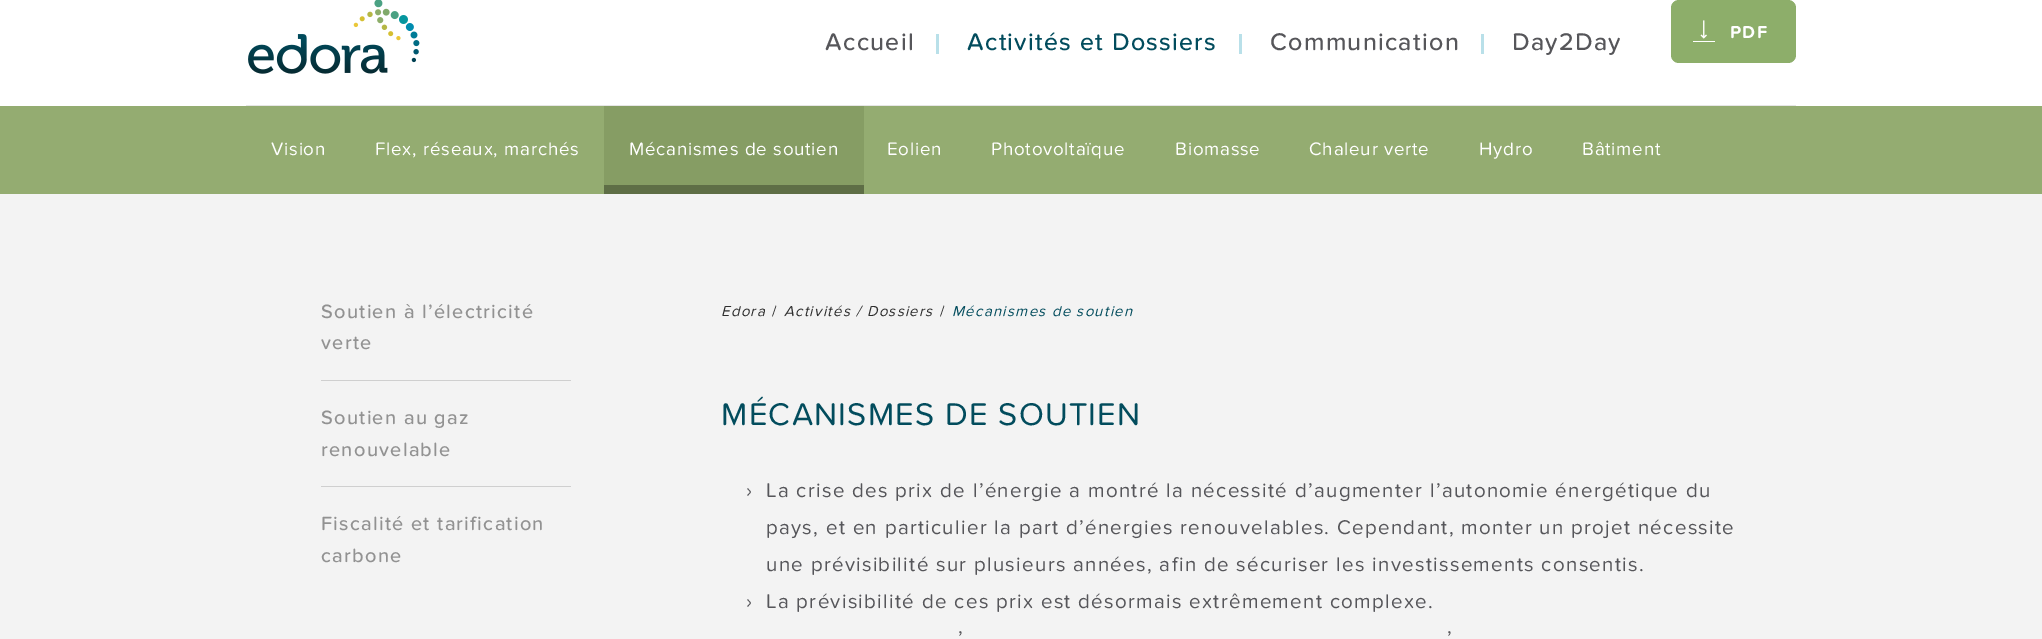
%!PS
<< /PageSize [2042 639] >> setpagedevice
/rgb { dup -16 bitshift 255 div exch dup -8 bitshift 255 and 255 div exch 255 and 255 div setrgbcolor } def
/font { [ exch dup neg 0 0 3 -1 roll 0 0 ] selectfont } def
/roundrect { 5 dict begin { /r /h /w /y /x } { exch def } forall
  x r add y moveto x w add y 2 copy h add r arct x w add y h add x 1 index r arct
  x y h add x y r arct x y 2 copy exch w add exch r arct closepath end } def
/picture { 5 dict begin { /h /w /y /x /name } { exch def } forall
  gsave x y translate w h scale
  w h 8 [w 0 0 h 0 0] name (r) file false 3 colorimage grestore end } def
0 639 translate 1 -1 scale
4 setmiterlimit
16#FFFFFF rgb
0 0 2042 639 rectfill
16#E6E6E6 rgb
246 105 1550 1 rectfill
(pic1.raw) 248 0 172 74 picture
/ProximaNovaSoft-Medium 25 font
16#56565A rgb
825 50 moveto 1.25 0 (Accueil) ashow
16#B9E0E9 rgb
936 34 3 20 rectfill
16#024C5D rgb
967 50 moveto 1.25 0 (Activités et Dossiers) ashow
16#B9E0E9 rgb
1239 34 3 20 rectfill
16#56565A rgb
1270 50 moveto 1.25 0 (Communication) ashow
16#B9E0E9 rgb
1481 34 3 20 rectfill
16#56565A rgb
1512 50 moveto 1.25 0 (Day2Day) ashow
16#8DAE6A rgb
1671 0 125 63 8 roundrect fill
(pic2.raw) 1693 20 22 22 picture
/ProximaNovaSoft-Bold 18 font
16#FFFFFF rgb
1730 38 moveto 1.25 0 (PDF) ashow
16#94AC71 rgb
0 106 2042 88 rectfill
/ProximaNovaSoft-Regular 18.75 font
16#FFFFFF rgb
271 155 moveto 0.75 0 (Vision) ashow
375 155 moveto 0.75 0 (Flex, réseaux, marchés) ashow
16#869D64 rgb
604 106 260 79 rectfill
16#5E6E46 rgb
604 185 260 9 rectfill
16#FFFFFF rgb
629 155 moveto 0.75 0 (Mécanismes de soutien) ashow
887 155 moveto 0.75 0 (Eolien) ashow
991 155 moveto 0.75 0 (Photovoltaïque) ashow
1175 155 moveto 0.75 0 (Biomasse) ashow
1309 155 moveto 0.75 0 (Chaleur verte) ashow
1479 155 moveto 0.75 0 (Hydro) ashow
1582 155 moveto 0.75 0 (Bâtiment) ashow
16#F3F3F3 rgb
0 194 2042 445 rectfill
/ProximaNovaSoft-Medium 20 font
16#929292 rgb
321 318 moveto 1.25 0 (Soutien à l’électricité) ashow
321 349 moveto 1.25 0 (verte) ashow
16#CFCFCF rgb
321 380 250 1 rectfill
16#929292 rgb
321 424 moveto 1.25 0 (Soutien au gaz) ashow
321 456 moveto 1.25 0 (renouvelable) ashow
16#CFCFCF rgb
321 486 250 1 rectfill
16#929292 rgb
321 530 moveto 1.25 0 (Fiscalité et tarification) ashow
321 562 moveto 1.25 0 (carbone) ashow
/ProximaNovaSoft-Italic 15 font
16#2D2D2D rgb
721 316 moveto 1.25 0 (Edora) ashow
/ProximaNovaSoft-Regular 15 font
772 316 moveto 1.25 0 (/) ashow
/ProximaNovaSoft-Italic 15 font
784 316 moveto 1.25 0 (Activités / Dossiers) ashow
/ProximaNovaSoft-Regular 15 font
940 316 moveto 1.25 0 (/) ashow
/ProximaNovaSoft-Italic 15 font
16#024C5D rgb
952 316 moveto 1.25 0 (Mécanismes de soutien) ashow
/ProximaNovaSoft-Regular 32.5 font
721 425 moveto 1.25 0 (MÉCANISMES DE SOUTIEN) ashow
/ProximaNovaSoft-Regular 20.6 font
16#56565A rgb
746 497 moveto 1.25 0 (›) ashow
766 497 moveto 1.25 0 (La crise des prix de l’énergie a montré la nécessité d’augmenter l’autonomie énergétique du) ashow
766 534 moveto 1.25 0 (pays, et en particulier la part d’énergies renouvelables. Cependant, monter un projet nécessite) ashow
766 571 moveto 1.25 0 (une prévisibilité sur plusieurs années, afin de sécuriser les investissements consentis.) ashow
746 608 moveto 1.25 0 (›) ashow
766 608 moveto 1.25 0 (La prévisibilité de ces prix est désormais extrêmement complexe.) ashow
958 645 moveto 1.25 0 (’) ashow
1447 645 moveto 1.25 0 (’) ashow
showpage
